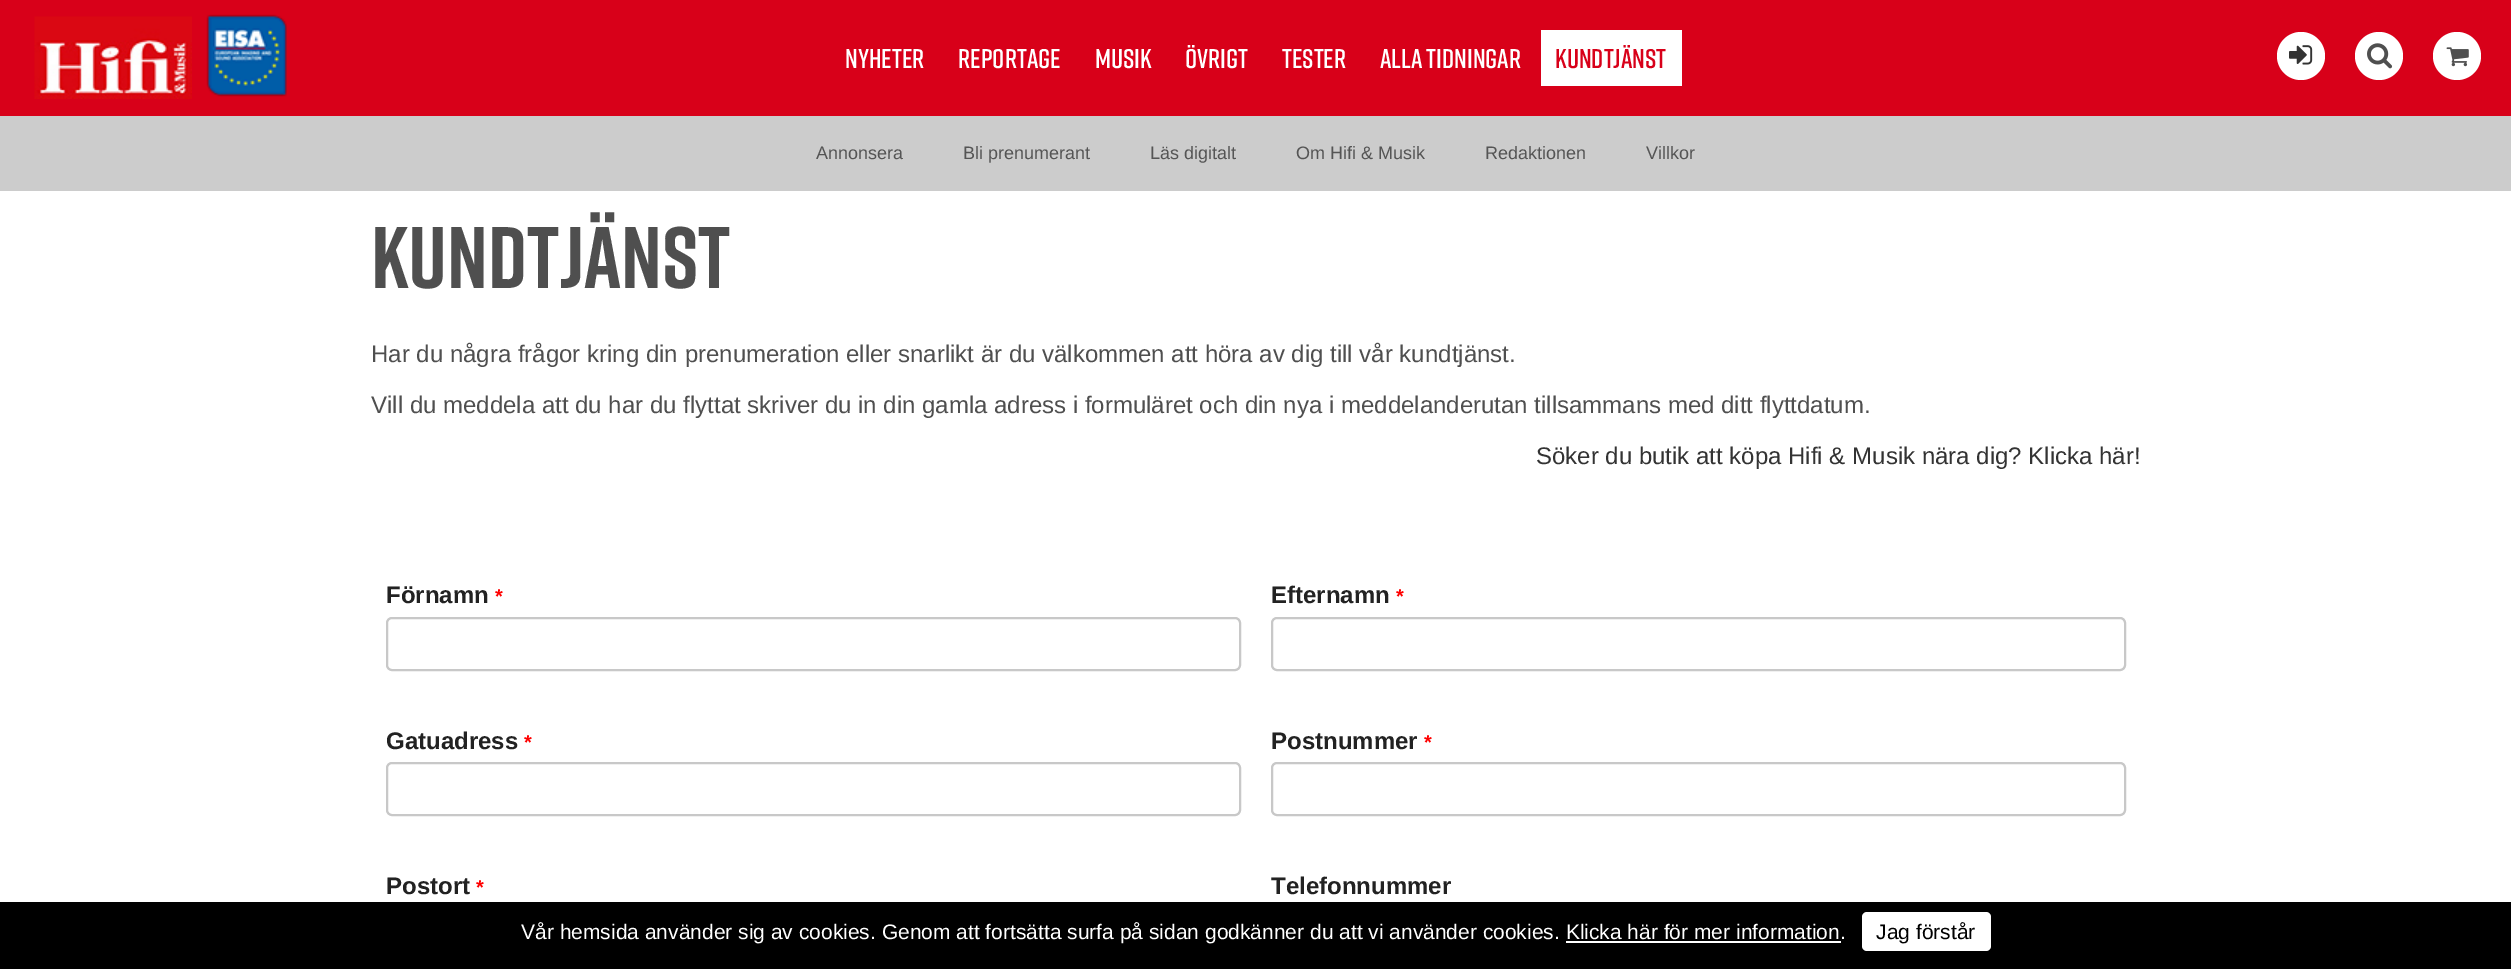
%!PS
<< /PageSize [2511 969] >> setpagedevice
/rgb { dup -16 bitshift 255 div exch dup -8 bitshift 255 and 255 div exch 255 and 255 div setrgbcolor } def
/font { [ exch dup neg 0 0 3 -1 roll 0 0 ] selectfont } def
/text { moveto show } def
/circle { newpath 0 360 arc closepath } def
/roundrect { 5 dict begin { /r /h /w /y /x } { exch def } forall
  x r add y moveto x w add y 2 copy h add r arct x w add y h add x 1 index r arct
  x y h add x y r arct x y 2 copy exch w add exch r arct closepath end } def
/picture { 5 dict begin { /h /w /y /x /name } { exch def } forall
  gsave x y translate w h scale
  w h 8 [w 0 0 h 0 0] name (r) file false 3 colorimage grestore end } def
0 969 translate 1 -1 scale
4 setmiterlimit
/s1 { /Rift-SemiBold 27 font 16#FFFFFF rgb } def
/s2 { /Rift-SemiBold 27 font 16#D80019 rgb } def
/s3 { /LiberationSans-Regular 18 font 16#555555 rgb } def
/s4 { /Rift-Bold 87 font 16#4F4F4F rgb } def
/s5 { /LiberationSans-Regular 24 font 16#4F4F4F rgb } def
/s6 { /LiberationSans-Regular 24 font 16#333333 rgb } def
/s7 { /LiberationSans-Bold 24 font 16#222222 rgb } def
/s8 { /LiberationSans-Bold 20 font 16#FF0000 rgb } def
/s9 { /LiberationSans-Regular 21 font 16#FFFFFF rgb } def
/s10 { /LiberationSans-Regular 21 font 16#000000 rgb } def
16#FFFFFF rgb
0 0 2511 969 rectfill
16#D80019 rgb
0 0 2511 116 rectfill
(pic1.raw) 34 16 158 83 picture
(pic2.raw) 206 14 81 83 picture
s1
(NYHETER) 845 68 text
(REPORTAGE) 958 68 text
(MUSIK) 1095 68 text
(ÖVRIGT) 1185 68 text
(TESTER) 1282 68 text
(ALLA TIDNINGAR) 1380 68 text
1541 30 141 56 rectfill
s2
(KUNDTJÄNST) 1555 68 text
16#FFFFFF rgb
2301 56 24 circle fill
(pic3.raw) 2289 45 24 20 picture
2379 56 24 circle fill
(pic4.raw) 2367 43 26 26 picture
2457 56 24 circle fill
(pic5.raw) 2446 47 23 20 picture
16#CCCCCC rgb
0 116 2511 75 rectfill
s3
(Annonsera) 816 159 text
(Bli prenumerant) 963 159 text
(Läs digitalt) 1150 159 text
(Om Hifi & Musik) 1296 159 text
(Redaktionen) 1485 159 text
(Villkor) 1646 159 text
s4
(Kundtjänst) 371 288 text
s5
(Har du några frågor kring din prenumeration eller snarlikt är du välkommen att höra av dig till vår kundtjänst.) 371 362 text
(Vill du meddela att du har du flyttat skriver du in din gamla adress i formuläret och din nya i meddelanderutan tillsammans med ditt flyttdatum.) 371 413 text
s6
(Söker du butik att köpa Hifi & Musik nära dig? Klicka här!) 1536 464 text
s7
(Förnamn) 386 603 text
s8
(*) 495 603 text
16#C8C8C8 rgb
2 setlinewidth
387 618 853 52 5 roundrect stroke
s7
(Efternamn) 1271 603 text
s8
(*) 1396 603 text
16#C8C8C8 rgb
1272 618 853 52 5 roundrect stroke
s7
(Gatuadress) 386 749 text
s8
(*) 524 749 text
16#C8C8C8 rgb
387 763 853 52 5 roundrect stroke
s7
(Postnummer) 1271 749 text
s8
(*) 1424 749 text
16#C8C8C8 rgb
1272 763 853 52 5 roundrect stroke
s7
(Postort) 386 894 text
s8
(*) 476 894 text
s7
(Telefonnummer) 1271 894 text
16#000000 rgb
0 902 2511 67 rectfill
s9
(Vår hemsida använder sig av cookies. Genom att fortsätta surfa på sidan godkänner du att vi använder cookies. Klicka här för mer information.) 521 939 text
1566 941 275 2 rectfill
1862 912 129 39 5 roundrect fill
s10
(Jag förstår) 1876 939 text
showpage
